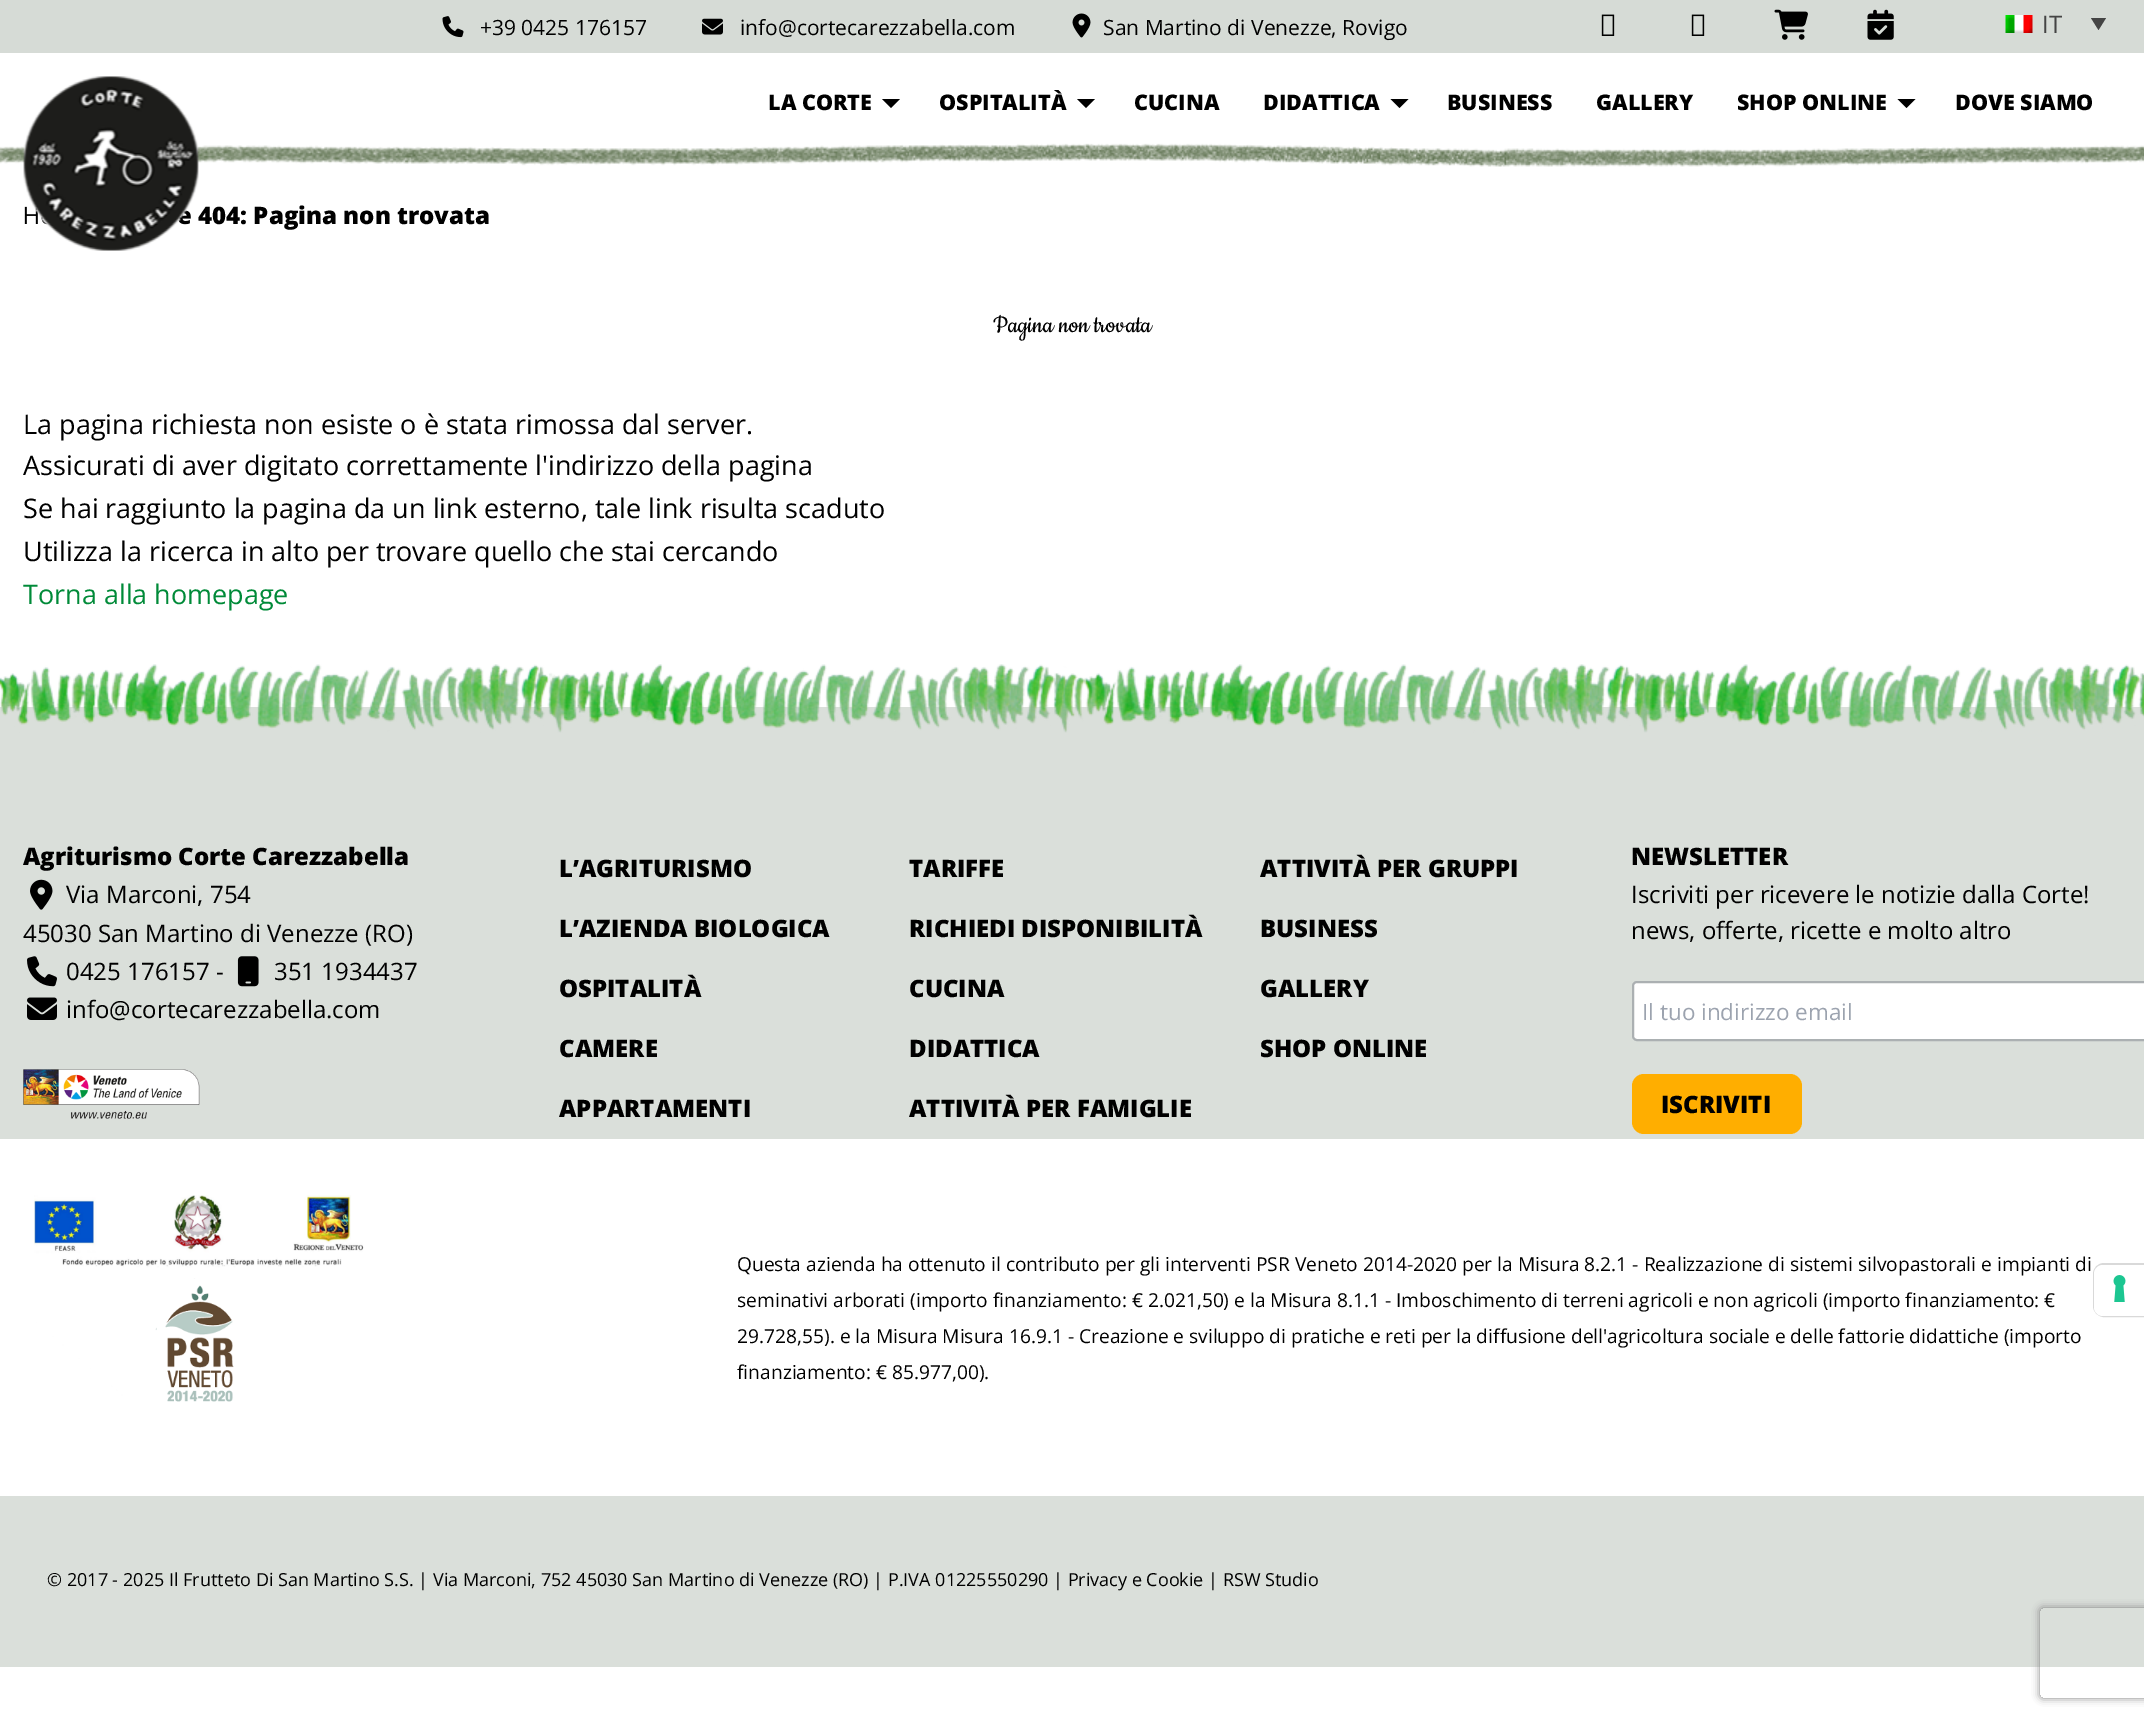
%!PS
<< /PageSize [2144 1719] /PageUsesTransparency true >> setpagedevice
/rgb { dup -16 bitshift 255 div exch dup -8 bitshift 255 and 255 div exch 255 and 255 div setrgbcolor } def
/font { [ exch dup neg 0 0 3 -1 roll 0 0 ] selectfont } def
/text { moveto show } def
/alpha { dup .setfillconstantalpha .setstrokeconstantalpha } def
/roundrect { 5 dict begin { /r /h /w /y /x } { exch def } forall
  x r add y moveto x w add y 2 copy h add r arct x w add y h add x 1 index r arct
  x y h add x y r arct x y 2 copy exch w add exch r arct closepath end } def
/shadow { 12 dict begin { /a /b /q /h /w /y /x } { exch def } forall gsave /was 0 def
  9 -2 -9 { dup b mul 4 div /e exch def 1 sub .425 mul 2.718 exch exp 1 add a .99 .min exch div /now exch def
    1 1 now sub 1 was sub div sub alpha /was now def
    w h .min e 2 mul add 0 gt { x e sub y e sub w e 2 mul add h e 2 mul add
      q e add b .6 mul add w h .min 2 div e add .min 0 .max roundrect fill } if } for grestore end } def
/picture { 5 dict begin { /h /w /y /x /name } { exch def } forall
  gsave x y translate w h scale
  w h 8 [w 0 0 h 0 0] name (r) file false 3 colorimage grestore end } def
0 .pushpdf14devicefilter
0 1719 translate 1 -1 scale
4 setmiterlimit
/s1 { /OpenSans-Regular 21 font 16#000000 rgb } def
/s2 { /OpenSans-Regular 24 font 16#444444 rgb } def
/s3 { /OpenSans-Regular 24 font 16#000000 rgb } def
/s4 { /OpenSans-ExtraBold 24 font 16#000000 rgb } def
/s5 { /OpenSans-ExtraBold 21.5 font 16#000000 rgb } def
/s6 { /Cookie-Regular 27 font 16#000000 rgb } def
/s7 { /OpenSans-Regular 27 font 16#000000 rgb } def
/s8 { /OpenSans-Regular 27 font 16#008A38 rgb } def
/s9 { /OpenSans-Regular 22.5 font 16#9CA3AF rgb } def
/s10 { /OpenSans-Regular 19.2 font 16#000000 rgb } def
/s11 { /OpenSans-Regular 18 font 16#000000 rgb } def
16#FFFFFF rgb
0 0 2144 1719 rectfill
16#D6DBD6 rgb
0 0 2144 53 rectfill
(pic1.raw) 442 16 22 22 picture
s1
(+39 0425 176157) 480 35 text
(pic2.raw) 702 18 21 17 picture
(info@cortecarezzabella.com) 740 35 text
(pic3.raw) 1072 13 19 25 picture
(San Martino di Venezze, Rovigo) 1103 35 text
(pic4.raw) 1601 14 14 22 picture
(pic4.raw) 1691 14 14 22 picture
(pic5.raw) 1774 9 34 31 picture
(pic6.raw) 1867 9 27 31 picture
(pic7.raw) 2005 15 28 18 picture
s2
(IT) 2042 33 text
2091 18 moveto 2106 18 lineto 2098.5 30 lineto closepath fill
(pic9.raw) 0 143 2144 24 picture
s3
(H) 23 224 text
s4
(e 404: Pagina non trovata) 177 224 text
(pic8.raw) 23 76 176 175 picture
s5
(LA CORTE) 768 110 text
882 99 moveto 900 99 lineto 891 108 lineto closepath fill
(OSPITALITÀ) 939 110 text
1077 99 moveto 1095 99 lineto 1086 108 lineto closepath fill
(CUCINA) 1134 110 text
(DIDATTICA) 1263 110 text
1390.5 99 moveto 1408.5 99 lineto 1399.5 108 lineto closepath fill
(BUSINESS) 1447 110 text
(GALLERY) 1596 110 text
(SHOP ONLINE) 1737 110 text
1897.5 99 moveto 1915.5 99 lineto 1906.5 108 lineto closepath fill
(DOVE SIAMO) 1955 110 text
s6
(Pagina non trovata) 993 332 text
s7
(La pagina richiesta non esiste o è stata rimossa dal server.) 23 434 text
(Assicurati di aver digitato correttamente l'indirizzo della pagina) 23 475 text
(Se hai raggiunto la pagina da un link esterno, tale link risulta scaduto) 23 518 text
(Utilizza la ricerca in alto per trovare quello che stai cercando) 23 561 text
s8
(Torna alla homepage) 23 604 text
16#DADFDA rgb
0 707 2144 960 rectfill
(pic10.raw) 0 664 2144 69 picture
s4
(Agriturismo Corte Carezzabella) 23 865 text
(pic11.raw) 30 879 23 31 picture
s3
(Via Marconi, 754) 66 903 text
(45030 San Martino di Venezze \(RO\)) 23 942 text
(pic12.raw) 27 956 30 31 picture
(0425 176157 -) 66 980 text
(pic13.raw) 237 956 22 31 picture
(351 1934437) 274 980 text
(pic14.raw) 27 997 30 23 picture
(info@cortecarezzabella.com) 66 1018 text
(pic15.raw) 23 1069 177 50 picture
s4
(L’AGRITURISMO) 559 877 text
(TARIFFE) 909 877 text
(ATTIVITÀ PER GRUPPI) 1260 877 text
(L’AZIENDA BIOLOGICA) 559 937 text
(RICHIEDI DISPONIBILITÀ) 909 937 text
(BUSINESS) 1260 937 text
(OSPITALITÀ) 559 997 text
(CUCINA) 909 997 text
(GALLERY) 1260 997 text
(CAMERE) 559 1057 text
(DIDATTICA) 909 1057 text
(SHOP ONLINE) 1260 1057 text
(APPARTAMENTI) 559 1117 text
(ATTIVITÀ PER FAMIGLIE) 909 1117 text
(NEWSLETTER) 1631 865 text
s3
(Iscriviti per ricevere le notizie dalla Corte!) 1631 903 text
(news, offerte, ricette e molto altro) 1631 939 text
16#FFFFFF rgb
1633 982 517 58 4 roundrect gsave fill grestore
16#ABB0B2 rgb
2 setlinewidth
stroke
s9
(Il tuo indirizzo email) 1642 1020 text
16#FFAE00 rgb
1632 1074 170 60 12 roundrect fill
s4
(ISCRIVITI) 1661 1113 text
16#FFFFFF rgb
0 1139 2144 357 rectfill
(pic16.raw) 34 1195 330 207 picture
s10
(Questa azienda ha ottenuto il contributo per gli interventi PSR Veneto 2014-2020 per la Misura 8.2.1 - Realizzazione di sistemi silvopastorali e impianti di) 737 1271 text
(seminativi arborati \(importo finanziamento: € 2.021,50\) e la Misura 8.1.1 - Imboschimento di terreni agricoli e non agricoli \(importo finanziamento: €) 737 1307 text
(29.728,55\). e la Misura Misura 16.9.1 - Creazione e sviluppo di pratiche e reti per la diffusione dell'agricoltura sociale e delle fattorie didattiche \(importo) 737 1343 text
(finanziamento: € 85.977,00\).) 737 1379 text
s11
(© 2017 - 2025 Il Frutteto Di San Martino S.S. | Via Marconi, 752 45030 San Martino di Venezze \(RO\) | P.IVA 01225550290 | Privacy e Cookie | RSW Studio) 47 1586 text
16#D9D9D9 rgb
2104 1264 moveto 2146 1264 lineto 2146 1316 lineto 2104 1316 lineto 2098.5 1316 2094 1311.5 2094 1306 curveto 2094 1274 lineto 2094 1268.5 2098.5 1264 2104 1264 curveto closepath stroke
16#FFFFFF rgb
2103 1265 moveto 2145 1265 lineto 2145 1316 lineto 2103 1316 lineto 2098 1316 2094 1312 2094 1307 curveto 2094 1274 lineto 2094 1269 2098 1265 2103 1265 curveto closepath fill
(pic17.raw) 2113 1275 13 27 picture
gsave
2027 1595 moveto 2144 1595 lineto 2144 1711 lineto 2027 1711 lineto closepath 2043 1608 moveto 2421 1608 lineto 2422.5 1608 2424 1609.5 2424 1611 curveto 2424 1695 lineto 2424 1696.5 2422.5 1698 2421 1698 curveto 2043 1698 lineto 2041.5 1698 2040 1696.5 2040 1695 curveto 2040 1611 lineto 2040 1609.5 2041.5 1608 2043 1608 curveto closepath eoclip newpath
16#808080 rgb
2040 1608 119 90 3 4 1 shadow
grestore
.poppdf14devicefilter showpage
